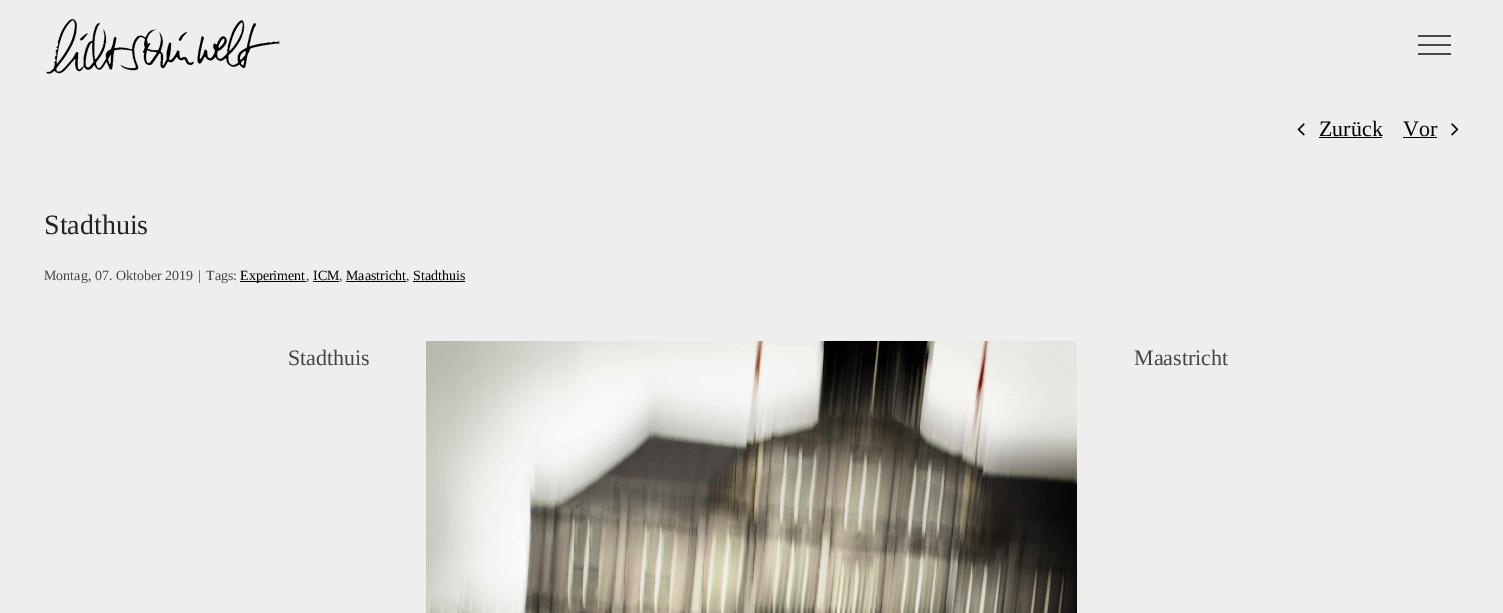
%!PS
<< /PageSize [1503 613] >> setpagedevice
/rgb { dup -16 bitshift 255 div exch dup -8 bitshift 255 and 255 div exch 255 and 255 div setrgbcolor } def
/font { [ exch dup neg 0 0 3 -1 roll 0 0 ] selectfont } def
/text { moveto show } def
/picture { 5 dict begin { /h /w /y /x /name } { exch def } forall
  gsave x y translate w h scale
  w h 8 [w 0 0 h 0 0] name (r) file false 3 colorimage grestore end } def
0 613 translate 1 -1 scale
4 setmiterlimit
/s1 { /LiberationSerif-Regular 22 font 16#000000 rgb } def
/s2 { /LiberationSerif-Regular 28 font 16#222222 rgb } def
/s3 { /LiberationSerif-Regular 14 font 16#444444 rgb } def
/s4 { /LiberationSerif-Regular 14 font 16#000000 rgb } def
/s5 { /LiberationSerif-Regular 22 font 16#444444 rgb } def
16#EEEEEE rgb
0 0 1503 613 rectfill
(pic1.raw) 46 18 235 56 picture
16#494949 rgb
1418 35 33 2 rectfill
1418 44 33 2 rectfill
1418 53 33 2 rectfill
(pic2.raw) 1297 123 8 13 picture
s1
(Zurück) 1319 136 text
1319 137 63 1 rectfill
(Vor) 1403 136 text
1403 137 34 1 rectfill
(pic3.raw) 1451 123 8 13 picture
s2
(Stadthuis) 44 234 text
s3
(Montag, 07. Oktober 2019) 44 280 text
(|) 198 280 text
(Tags:) 206 280 text
16#000000 rgb
240 281 66 1 rectfill
(Experiment) 240 280 text
s3
(,) 306 280 text
s4
(ICM) 313 280 text
s3
(,) 339 280 text
16#000000 rgb
313 281 26 1 rectfill
(Maastricht) 346 280 text
s3
(,) 406 280 text
16#000000 rgb
346 281 60 1 rectfill
413 281 52 1 rectfill
(Stadthuis) 413 280 text
s5
(Stadthuis) 288 365 text
(pic4.raw) 426 341 651 272 picture
(Maastricht) 1134 365 text
showpage
